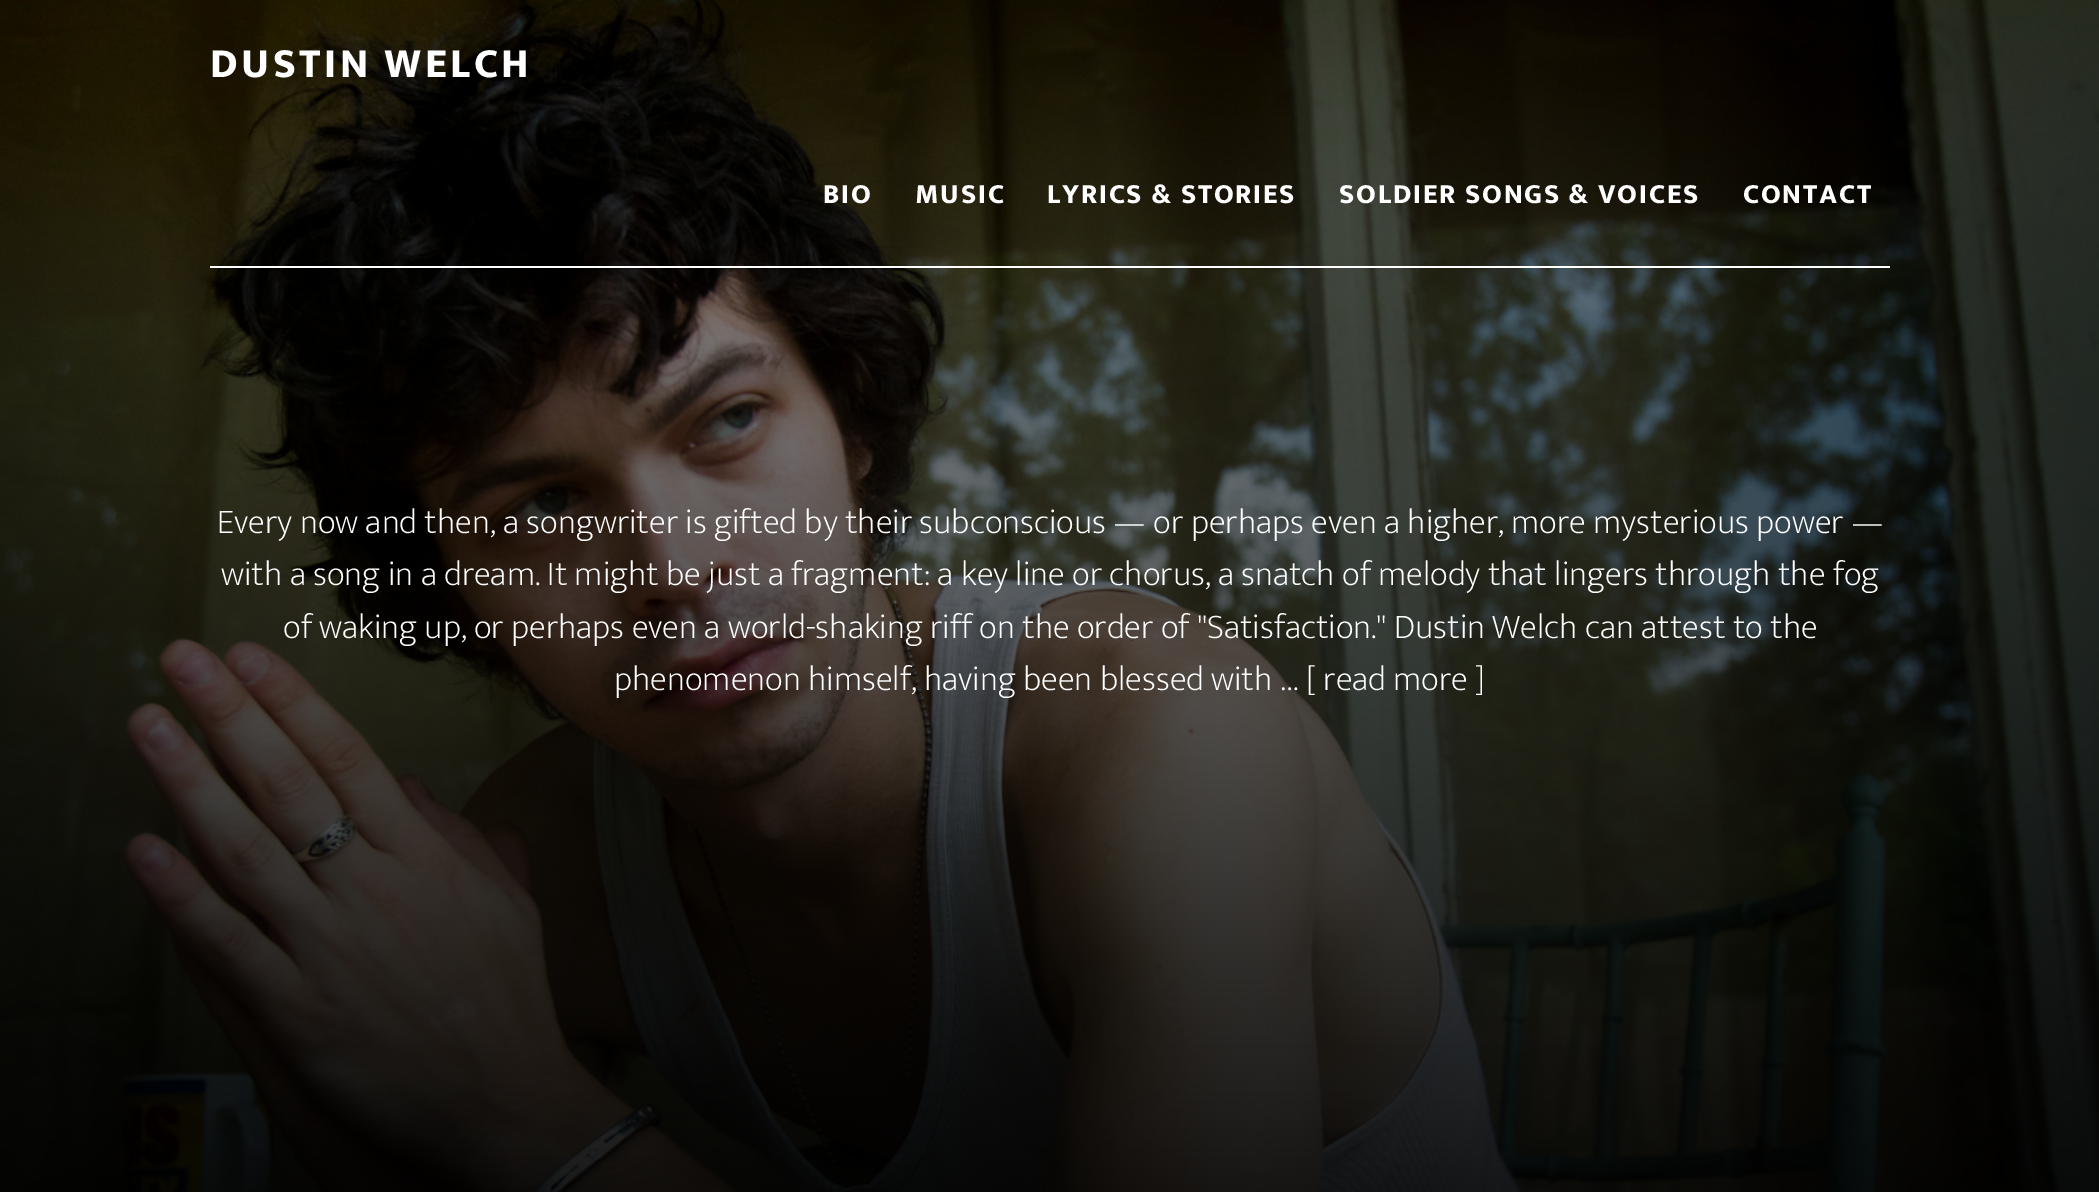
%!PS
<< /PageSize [2099 1192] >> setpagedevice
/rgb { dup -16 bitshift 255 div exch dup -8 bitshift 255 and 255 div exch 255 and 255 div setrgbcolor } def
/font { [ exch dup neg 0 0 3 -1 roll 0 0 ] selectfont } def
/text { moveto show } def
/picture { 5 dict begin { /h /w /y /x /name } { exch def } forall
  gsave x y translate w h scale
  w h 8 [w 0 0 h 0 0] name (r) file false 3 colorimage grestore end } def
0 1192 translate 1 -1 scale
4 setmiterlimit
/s1 { /Mukta-ExtraLight 35 font 16#FFFFFF rgb } def
16#FFFFFF rgb
0 0 2099 1192 rectfill
(pic1.raw) 0 0 2099 1192 picture
210 266 1680 2 rectfill
/Mukta-ExtraBold 42 font
210 77 moveto 3.5 0 (DUSTIN WELCH) ashow
/Mukta-ExtraBold 28 font
823 203 moveto 1.75 0 (BIO) ashow
915 203 moveto 1.75 0 (MUSIC) ashow
1047 203 moveto 1.75 0 (LYRICS & STORIES) ashow
1339 203 moveto 1.75 0 (SOLDIER SONGS & VOICES) ashow
1743 203 moveto 1.75 0 (CONTACT) ashow
s1
(Every now and then, a songwriter is gifted by their subconscious — or perhaps even a higher, more mysterious power —) 217 533 text
(with a song in a dream. It might be just a fragment: a key line or chorus, a snatch of melody that lingers through the fog) 221 585 text
(of waking up, or perhaps even a world-shaking riff on the order of "Satisfaction." Dustin Welch can attest to the) 283 638 text
(phenomenon himself, having been blessed with … [ read more ]) 614 690 text
showpage
